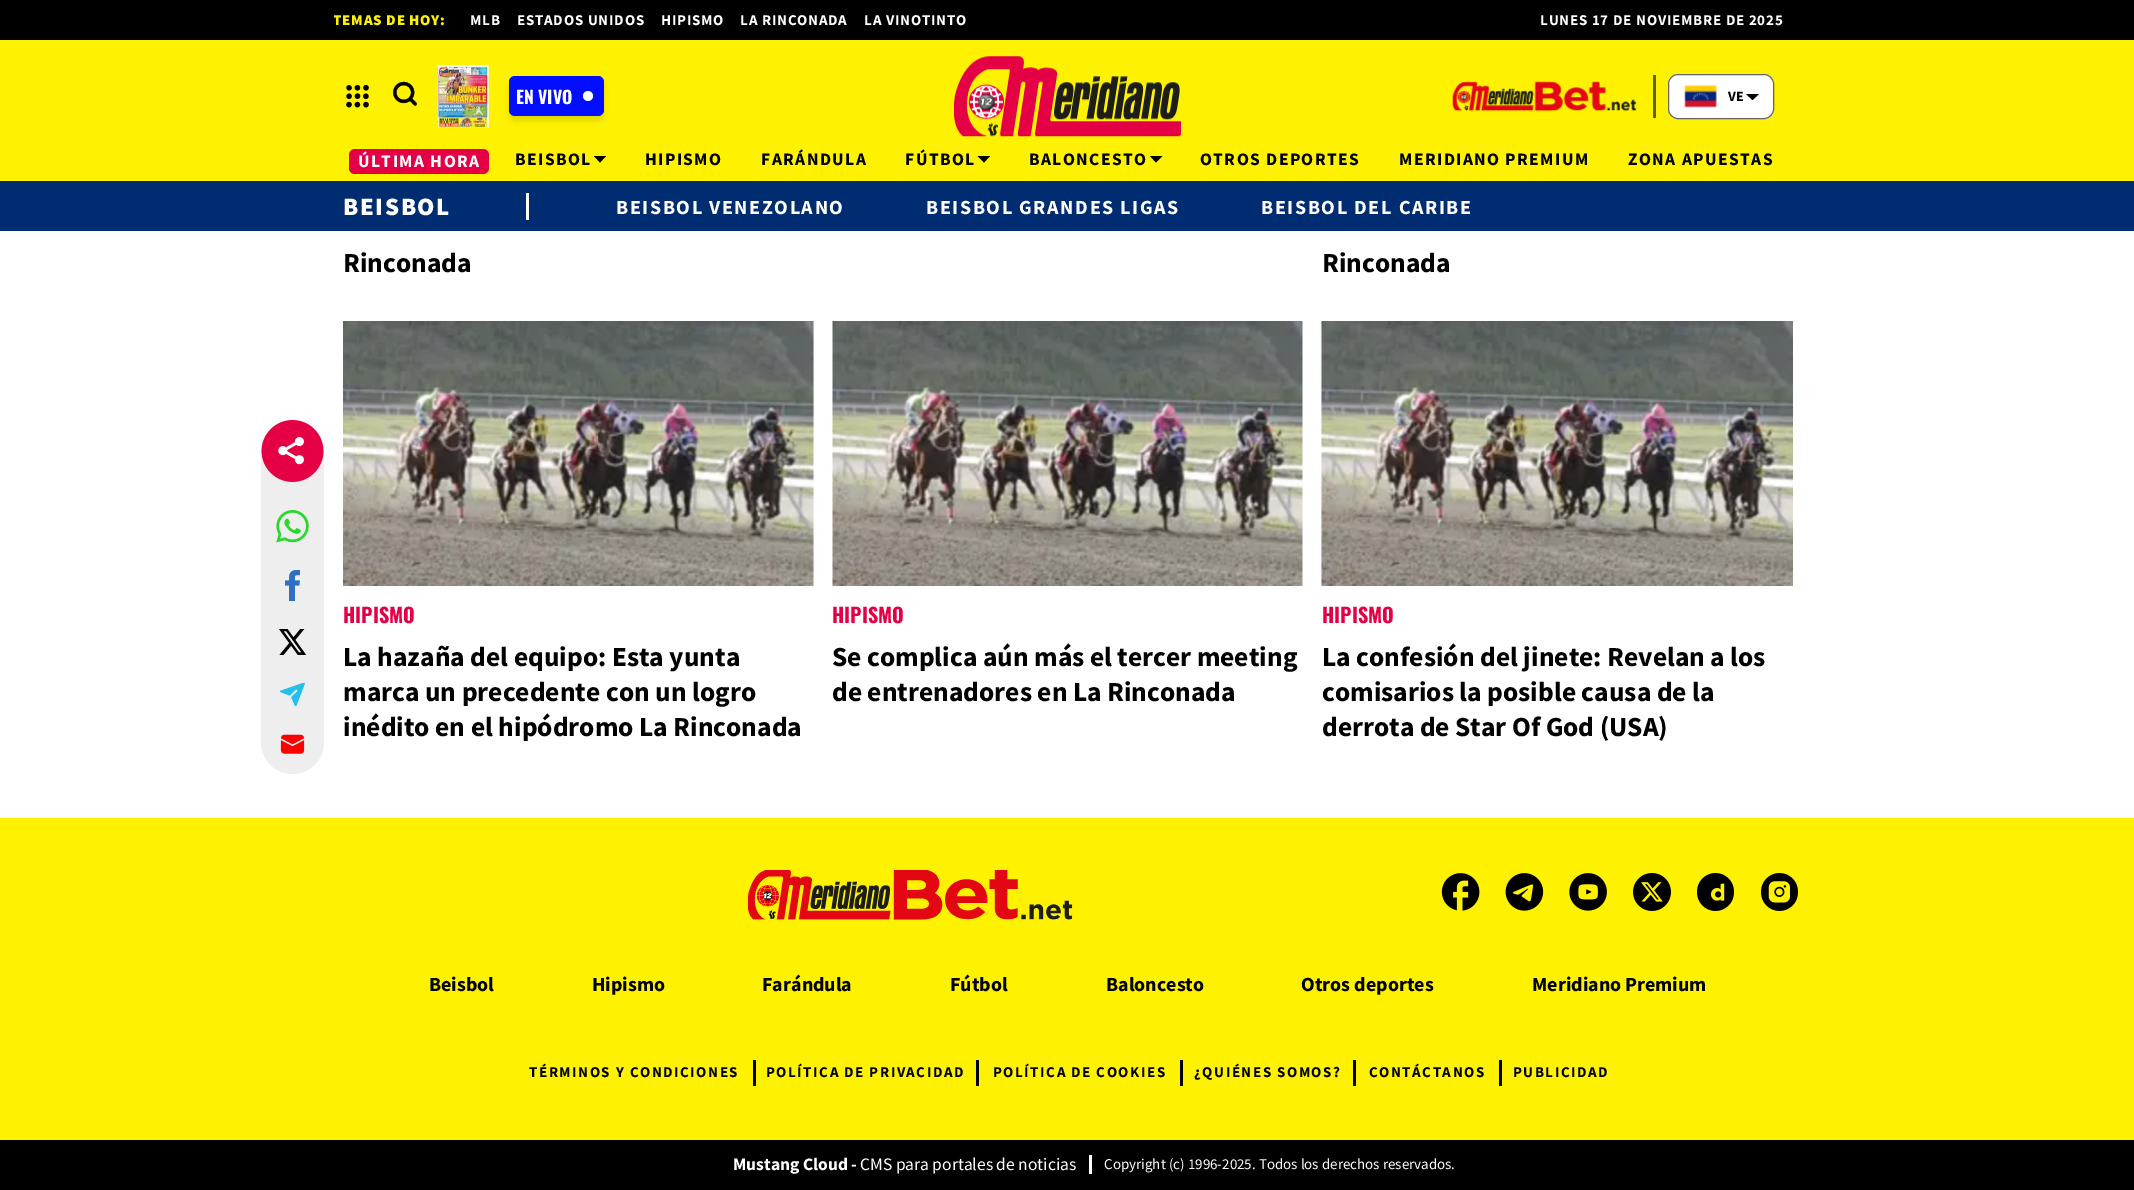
%!PS
<< /PageSize [2134 1190] /PageUsesTransparency true >> setpagedevice
/rgb { dup -16 bitshift 255 div exch dup -8 bitshift 255 and 255 div exch 255 and 255 div setrgbcolor } def
/font { [ exch dup neg 0 0 3 -1 roll 0 0 ] selectfont } def
/text { moveto show } def
/alpha { dup .setfillconstantalpha .setstrokeconstantalpha } def
/circle { newpath 0 360 arc closepath } def
/roundrect { 5 dict begin { /r /h /w /y /x } { exch def } forall
  x r add y moveto x w add y 2 copy h add r arct x w add y h add x 1 index r arct
  x y h add x y r arct x y 2 copy exch w add exch r arct closepath end } def
/shadow { 12 dict begin { /a /b /q /h /w /y /x } { exch def } forall gsave /was 0 def
  9 -2 -9 { dup b mul 4 div /e exch def 1 sub .425 mul 2.718 exch exp 1 add a .99 .min exch div /now exch def
    1 1 now sub 1 was sub div sub alpha /was now def
    w h .min e 2 mul add 0 gt { x e sub y e sub w e 2 mul add h e 2 mul add
      q e add b .6 mul add w h .min 2 div e add .min 0 .max roundrect fill } if } for grestore end } def
/picture { 5 dict begin { /h /w /y /x /name } { exch def } forall
  gsave x y translate w h scale
  w h 8 [w 0 0 h 0 0] name (r) file false 3 colorimage grestore end } def
0 .pushpdf14devicefilter
0 1190 translate 1 -1 scale
4 setmiterlimit
/s1 { /Oswald-Bold 17.5 font 16#FFFFFF rgb } def
/s2 { /SourceSansPro-Bold 14 font 16#000000 rgb } def
/s3 { /SourceSansPro-Bold 27.5 font 16#000000 rgb } def
/s4 { /Oswald-Bold 20 font 16#E50046 rgb } def
/s5 { /SourceSansPro-Bold 20 font 16#000000 rgb } def
/s6 { /SourceSansPro-Bold 17.5 font 16#FFFFFF rgb } def
/s7 { /SourceSansPro-Regular 17.5 font 16#FFFFFF rgb } def
/s8 { /SourceSansPro-Regular 15 font 16#FFFFFF rgb } def
16#FFFFFF rgb
0 0 2134 1190 rectfill
16#FEF200 rgb
0 40 2134 141 rectfill
16#000000 rgb
0 0 2134 40 rectfill
gsave
334 9 1450 22 rectclip
/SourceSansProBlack-Black 15 font
16#FEF200 rgb
333 25 moveto 0.75 0 (TEMAS DE HOY:) ashow
grestore
/SourceSansPro-Bold 15 font
16#FFFFFF rgb
470 25 moveto 0.75 0 (MLB) ashow
517 25 moveto 0.75 0 (ESTADOS UNIDOS) ashow
661 25 moveto 0.75 0 (HIPISMO) ashow
740 25 moveto 0.75 0 (LA RINCONADA) ashow
864 25 moveto 0.75 0 (LA VINOTINTO) ashow
1540 25 moveto 0.75 0 (LUNES 17 DE NOVIEMBRE DE 2025) ashow
(pic1.raw) 346 84 23 24 picture
(pic2.raw) 393 81 24 25 picture
(pic3.raw) 437 65 52 63 picture
16#000000 rgb
509 81 95 40 6 2.5 0.1 shadow
16#030DFF rgb
509 76 95 40 6 roundrect fill
s1
(EN VIVO) 516 104 text
588 96 5 circle fill
(pic4.raw) 954 56 227 81 picture
(pic5.raw) 1452 81 185 31 picture
16#666100 rgb
1653 75 3 43 rectfill
16#FFFFFF rgb
1668 74 106 45 10 roundrect fill
0.6 alpha
16#000000 rgb
1668.5 74.5 105 44 9.5 roundrect stroke
1 alpha
(pic6.raw) 1684 84 33 24 picture
s2
(VE) 1728 101 text
1752.5 100 moveto 1746 94 lineto 1759 94 lineto closepath fill
16#E50046 rgb
349 149 140 25 6 roundrect fill
/SourceSansPro-Bold 17.5 font
16#FFFFFF rgb
358 167 moveto 1.4 0 (ÚLTIMA HORA) ashow
16#000000 rgb
761 165 moveto 1.4 0 (FARÁNDULA) ashow
905 165 moveto 1.4 0 (FÚTBOL) ashow
984 162.5 moveto 977.5 156 lineto 990 156 lineto closepath fill
515 165 moveto 1.4 0 (BEISBOL) ashow
600 162.5 moveto 594 156 lineto 606 156 lineto closepath fill
16#002D72 rgb
0 181 2134 50 rectfill
/SourceSansProBlack-Black 25 font
16#FFFFFF rgb
343 215 moveto 1.6 0 (BEISBOL) ashow
526 193 3 27 rectfill
/SourceSansPro-Bold 20 font
616 214 moveto 1.6 0 (BEISBOL VENEZOLANO) ashow
926 214 moveto 1.6 0 (BEISBOL GRANDES LIGAS) ashow
1261 214 moveto 1.6 0 (BEISBOL DEL CARIBE) ashow
/SourceSansPro-Bold 17.5 font
16#000000 rgb
645 165 moveto 1.4 0 (HIPISMO) ashow
1029 165 moveto 1.4 0 (BALONCESTO) ashow
1156 162.5 moveto 1150 156 lineto 1162.5 156 lineto closepath fill
1200 165 moveto 1.4 0 (OTROS DEPORTES) ashow
1399 165 moveto 1.4 0 (MERIDIANO PREMIUM) ashow
1628 165 moveto 1.4 0 (ZONA APUESTAS) ashow
16#EEEEEE rgb
261 420 63 354 31.5 roundrect fill
(pic7.raw) 261 420 63 62 picture
(pic8.raw) 276 510 33 33 picture
(pic9.raw) 285 570 15 31 picture
(pic10.raw) 279 629 27 26 picture
(pic11.raw) 280 683 25 23 picture
(pic12.raw) 280 734 25 20 picture
s3
(Rinconada) 343 272 text
(Rinconada) 1322 272 text
(pic13.raw) 343 321 472 265 picture
s4
(HIPISMO) 343 623 text
s3
(La hazaña del equipo: Esta yunta) 343 666 text
(marca un precedente con un logro) 343 701 text
(inédito en el hipódromo La Rinconada) 343 736 text
(pic14.raw) 832 321 471 265 picture
s4
(HIPISMO) 832 623 text
s3
(Se complica aún más el tercer meeting) 832 666 text
(de entrenadores en La Rinconada) 832 701 text
(pic15.raw) 1320 321 473 265 picture
s4
(HIPISMO) 1322 623 text
s3
(La confesión del jinete: Revelan a los) 1322 666 text
(comisarios la posible causa de la) 1322 701 text
(derrota de Star Of God \(USA\)) 1322 736 text
16#FEF200 rgb
0 818 2134 322 rectfill
(pic16.raw) 748 870 325 50 picture
(pic17.raw) 1441 873 39 38 picture
(pic18.raw) 1505 873 39 38 picture
(pic19.raw) 1569 873 38 38 picture
(pic20.raw) 1633 873 38 38 picture
(pic21.raw) 1697 873 37 38 picture
(pic22.raw) 1761 873 37 38 picture
s5
(Beisbol) 429 991 text
(Hipismo) 592 991 text
(Farándula) 762 991 text
(Fútbol) 950 991 text
(Baloncesto) 1106 991 text
(Otros deportes) 1301 991 text
(Meridiano Premium) 1532 991 text
/SourceSansPro-Bold 15 font
529 1077 moveto 1.5 0 (TÉRMINOS Y CONDICIONES) ashow
753 1060 3 26 rectfill
766 1077 moveto 1.5 0 (POLÍTICA DE PRIVACIDAD) ashow
976 1060 3 26 rectfill
993 1077 moveto 1.5 0 (POLÍTICA DE COOKIES) ashow
1180 1060 3 26 rectfill
1194 1077 moveto 1.5 0 (¿QUIÉNES SOMOS?) ashow
1353 1060 3 26 rectfill
1369 1077 moveto 1.5 0 (CONTÁCTANOS) ashow
1499 1060 3 26 rectfill
1513 1077 moveto 1.5 0 (PUBLICIDAD) ashow
0 1140 2134 50 rectfill
s6
(Mustang Cloud -) 733 1170 text
s7
(CMS para portales de noticias) 860 1170 text
1089 1155 3 19 rectfill
s8
(Copyright \(c\) 1996-2025. Todos los derechos reservados.) 1104 1169 text
.poppdf14devicefilter showpage
